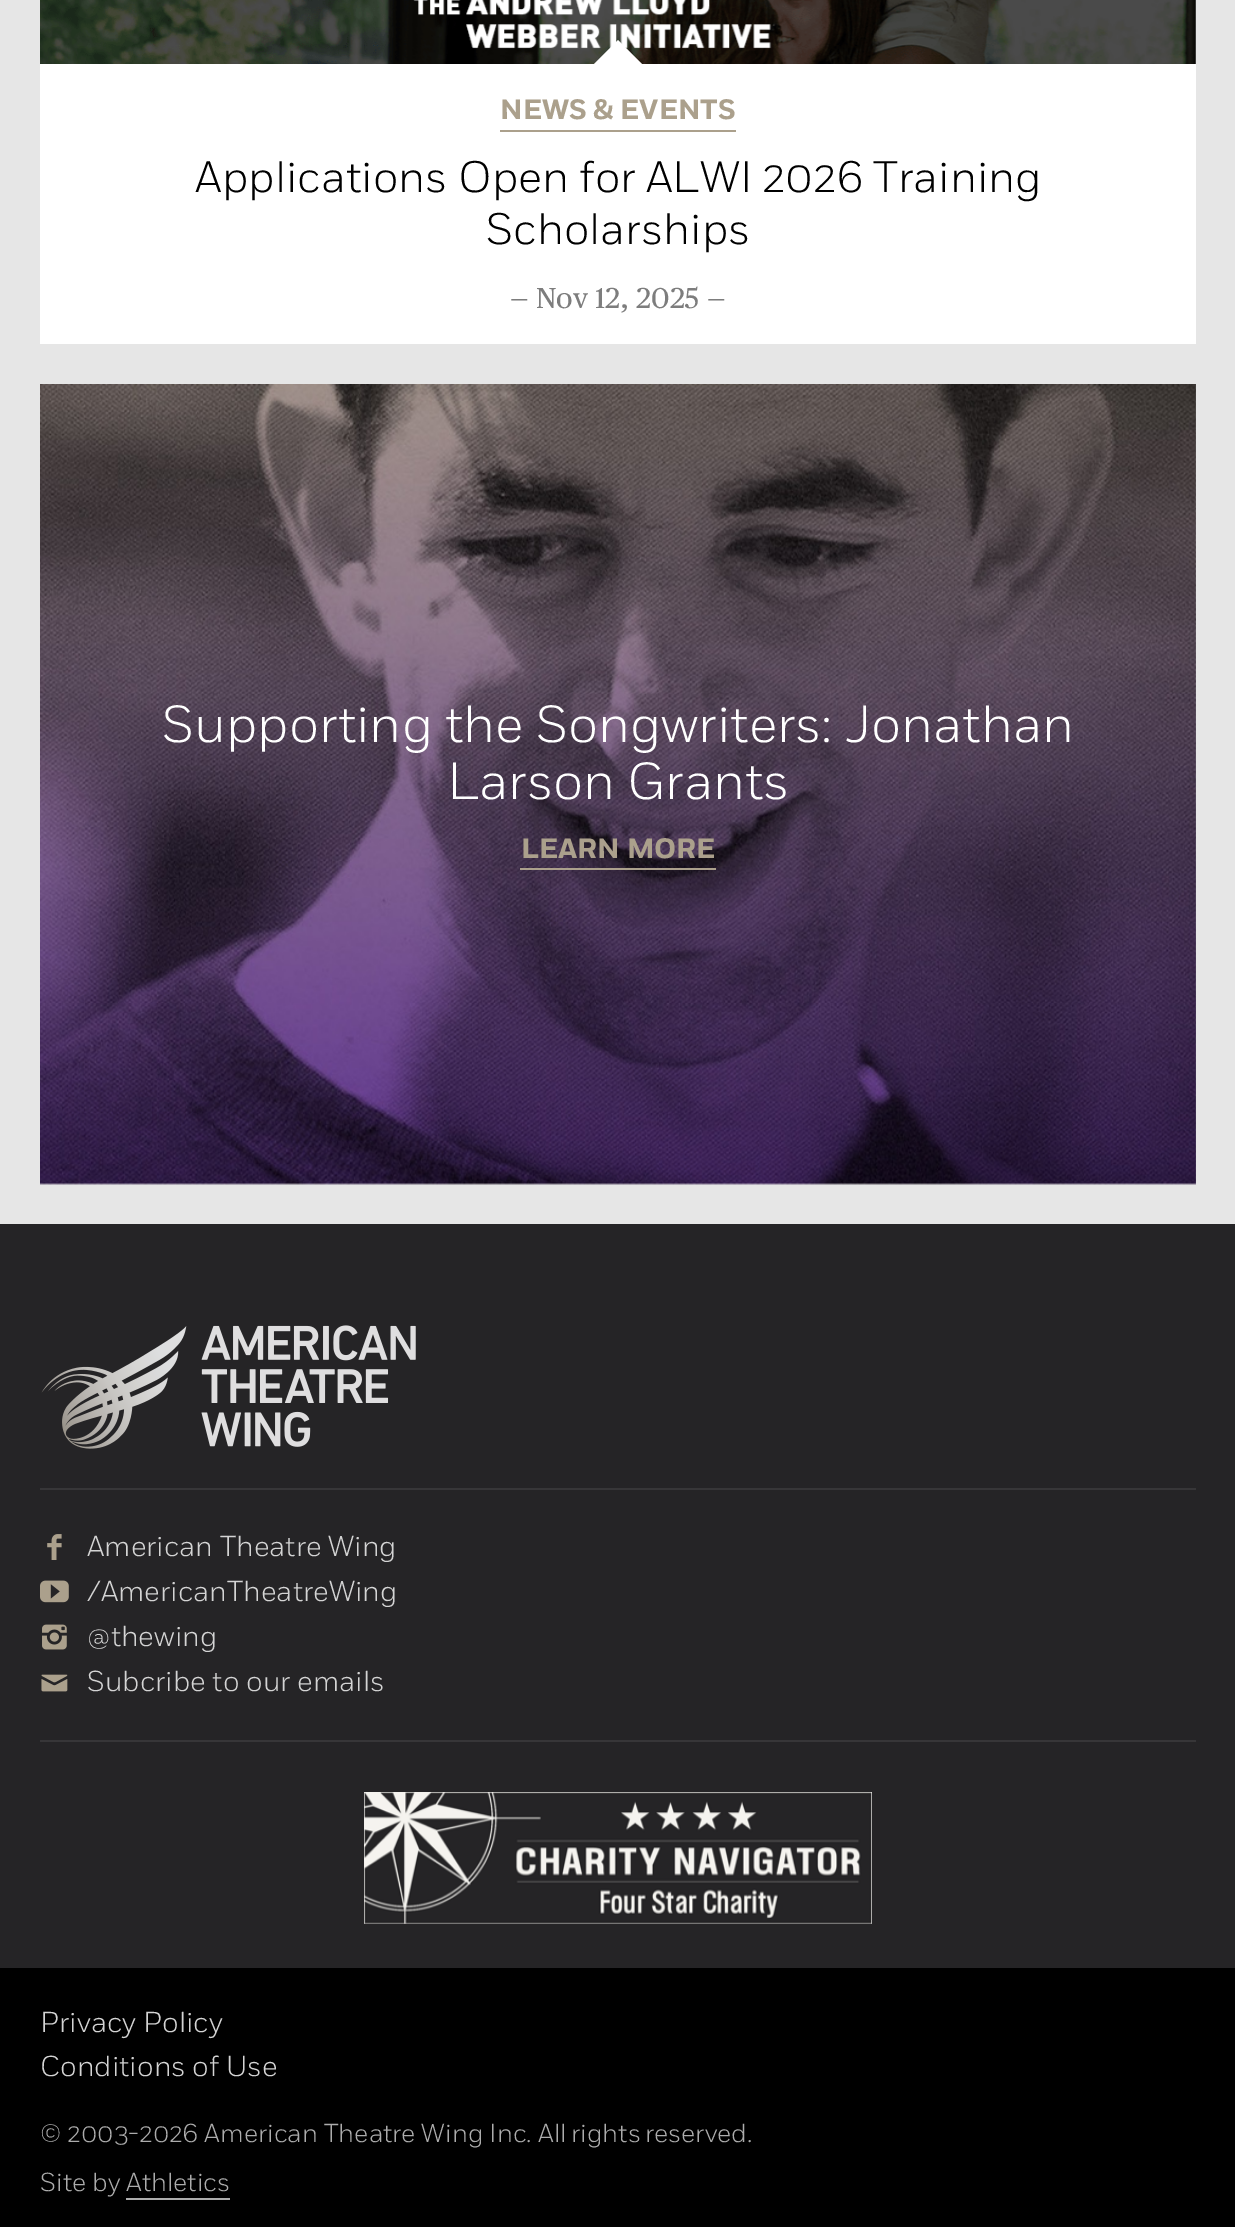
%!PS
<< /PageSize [1235 2227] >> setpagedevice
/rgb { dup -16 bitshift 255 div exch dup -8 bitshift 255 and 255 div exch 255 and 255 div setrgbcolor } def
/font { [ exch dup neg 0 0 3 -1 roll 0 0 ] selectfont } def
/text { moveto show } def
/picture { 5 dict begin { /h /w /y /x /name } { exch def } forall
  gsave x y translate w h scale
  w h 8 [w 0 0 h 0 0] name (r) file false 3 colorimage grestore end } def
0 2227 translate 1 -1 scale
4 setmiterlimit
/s1 { /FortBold-Bold 28 font 16#ABA08C rgb } def
/s2 { /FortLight-Light 44 font 16#000000 rgb } def
/s3 { /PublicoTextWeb-Regular 28.75 font 16#7D7D7D rgb } def
/s4 { /FortLight-Light 52 font 16#FFFFFF rgb } def
/s5 { /FortLight-Light 28.75 font 16#D4D4D4 rgb } def
/s6 { /FortLight-Light 25.9 font 16#ACACAC rgb } def
16#252426 rgb
0 0 1235 2227 rectfill
16#E6E6E6 rgb
0 0 1235 1224 rectfill
(pic1.raw) 40 0 1156 64 picture
16#FFFFFF rgb
40 64 1156 280 rectfill
642 64 moveto 594 64 lineto 618 40 lineto closepath fill
s1
(NEWS & EVENTS) 500 119 text
500 130 236 2 rectfill
s2
(Applications Open for ALWI 2026 Training) 195 192 text
(Scholarships) 486 244 text
s3
(— Nov 12, 2025 —) 510 308 text
(pic2.raw) 40 384 1156 801 picture
s4
(Supporting the Songwriters: Jonathan) 162 742 text
(Larson Grants) 447 799 text
s1
(LEARN MORE) 521 858 text
520 868 196 2 rectfill
16#373638 rgb
40 1488 1156 2 rectfill
(pic3.raw) 41 1326 146 123 picture
(pic4.raw) 201 1325 215 122 picture
40 1740 1156 2 rectfill
(pic5.raw) 47 1534 15 26 picture
s5
(American Theatre Wing) 87 1556 text
(pic6.raw) 40 1580 29 23 picture
(/AmericanTheatreWing) 87 1601 text
(pic7.raw) 42 1624 25 26 picture
(@thewing) 87 1646 text
(pic8.raw) 41 1674 27 18 picture
(Subcribe to our emails) 87 1691 text
(pic9.raw) 364 1792 508 132 picture
16#000000 rgb
0 1968 1235 259 rectfill
s5
(Privacy Policy) 40 2032 text
(Conditions of Use) 40 2076 text
s6
(© 2003-2026 American Theatre Wing Inc. All) 40 2142 text
(rights) 571 2142 text
(reserved.) 645 2142 text
(Site by Athletics) 40 2191 text
126 2198 104 2 rectfill
showpage
